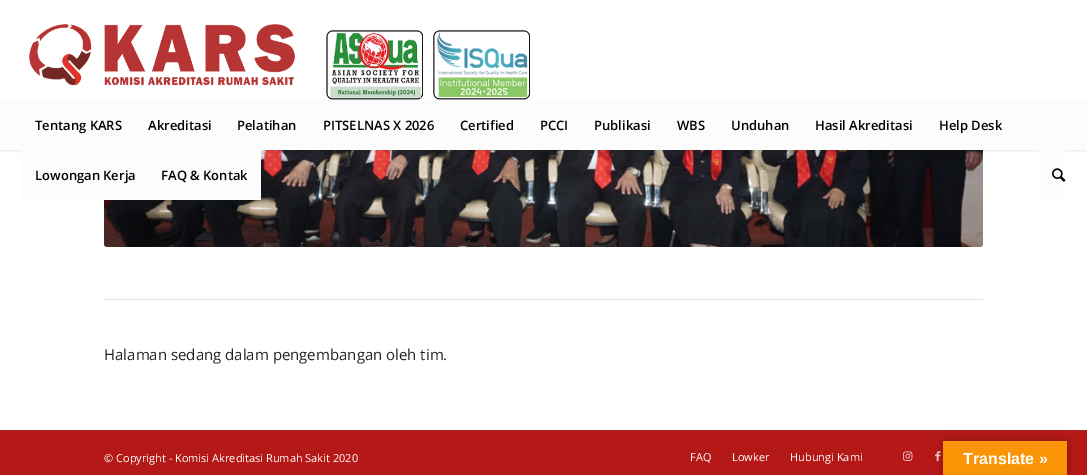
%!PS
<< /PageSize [1087 475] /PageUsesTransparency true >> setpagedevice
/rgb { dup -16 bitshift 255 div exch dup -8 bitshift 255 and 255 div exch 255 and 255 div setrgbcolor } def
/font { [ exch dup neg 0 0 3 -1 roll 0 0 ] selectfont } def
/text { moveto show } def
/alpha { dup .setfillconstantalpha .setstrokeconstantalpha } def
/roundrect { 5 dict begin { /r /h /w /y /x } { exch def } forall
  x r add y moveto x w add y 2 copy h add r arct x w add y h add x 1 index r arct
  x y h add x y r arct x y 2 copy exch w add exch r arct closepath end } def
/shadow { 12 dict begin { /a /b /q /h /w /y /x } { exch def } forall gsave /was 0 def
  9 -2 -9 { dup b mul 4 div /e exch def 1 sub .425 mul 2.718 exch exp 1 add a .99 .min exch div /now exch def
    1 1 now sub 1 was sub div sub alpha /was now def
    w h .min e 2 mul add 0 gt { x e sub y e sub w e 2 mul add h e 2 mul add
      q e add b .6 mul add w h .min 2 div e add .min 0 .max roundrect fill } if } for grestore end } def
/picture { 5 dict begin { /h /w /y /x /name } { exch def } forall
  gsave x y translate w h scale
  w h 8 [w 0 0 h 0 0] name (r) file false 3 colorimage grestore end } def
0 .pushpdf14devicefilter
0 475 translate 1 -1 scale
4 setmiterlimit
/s1 { /OpenSans-SemiBold 13 font 16#000000 rgb } def
/s2 { /OpenSans-Regular 15 font 16#222222 rgb } def
/s3 { /OpenSans-Regular 11 font 16#FFFFFF rgb } def
/s4 { /LiberationSans-Bold 16 font 16#FFFFFF rgb } def
16#FFFFFF rgb
0 0 1087 475 rectfill
(pic3.raw) 104 150 879 97 picture
16#000000 rgb
-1 -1 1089 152 0 1 0.1 shadow
16#FFFFFF rgb
0 0 1087 100 rectfill
(pic1.raw) 29 24 501 76 picture
16#FCFCFC rgb
0 100 1087 50 rectfill
s1
(Tentang KARS) 35 130 text
(Akreditasi) 148 130 text
(Pelatihan) 237 130 text
(PITSELNAS X 2026) 323 130 text
(Certified) 460 130 text
(PCCI) 540 130 text
(Publikasi) 594 130 text
(WBS) 677 130 text
(Unduhan) 731 130 text
(Hasil Akreditasi) 815 130 text
(Help Desk) 939 130 text
16#FCFCFC rgb
22 150 239 50 rectfill
s1
(Lowongan Kerja) 35 180 text
(FAQ & Kontak) 161 180 text
16#FCFCFC rgb
1039 150 26 50 rectfill
(pic2.raw) 1052 168 14 14 picture
16#E1E1E1 rgb
104 299 879 1 rectfill
s2
(Halaman sedang dalam pengembangan oleh tim.) 104 360 text
16#B51917 rgb
0 431 1087 44 rectfill
16#A6211F rgb
0 430 1087 1 rectfill
s3
(© Copyright - Komisi Akreditasi Rumah Sakit 2020) 104 462 text
(FAQ) 690 461 text
16#A6211F rgb
721 452 1 10 rectfill
s3
(Lowker) 732 461 text
16#A6211F rgb
779 452 1 10 rectfill
s3
(Hubungi Kami) 790 461 text
(pic4.raw) 903 451 10 10 picture
(pic5.raw) 935 451 6 11 picture
16#000000 rgb
943 441 124 34 0 4.5 0.3 shadow
16#F89406 rgb
943 441 124 34 rectfill
s4
(Translate ») 963 464 text
.poppdf14devicefilter showpage
